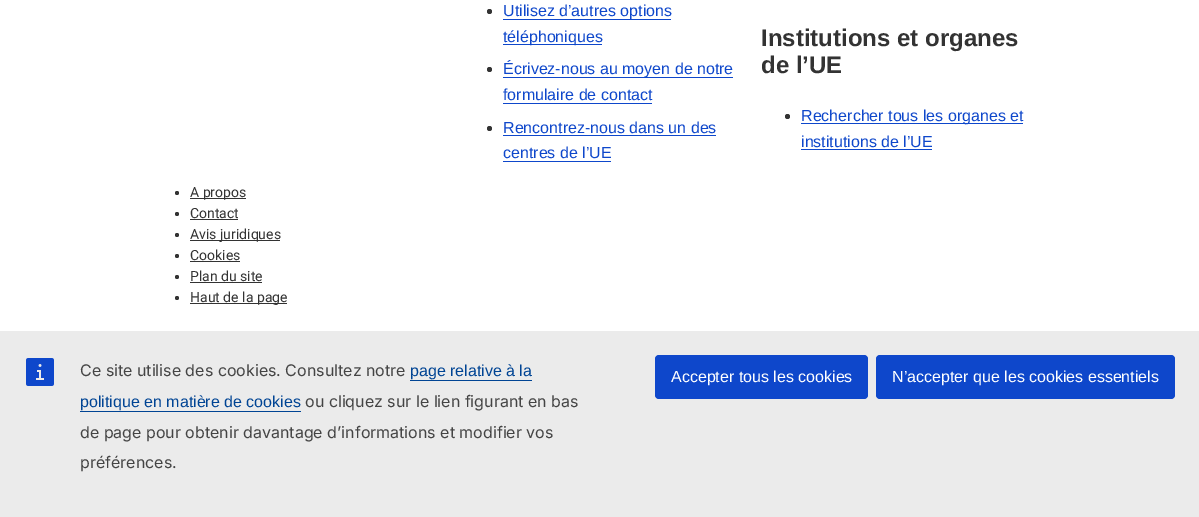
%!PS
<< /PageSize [1199 517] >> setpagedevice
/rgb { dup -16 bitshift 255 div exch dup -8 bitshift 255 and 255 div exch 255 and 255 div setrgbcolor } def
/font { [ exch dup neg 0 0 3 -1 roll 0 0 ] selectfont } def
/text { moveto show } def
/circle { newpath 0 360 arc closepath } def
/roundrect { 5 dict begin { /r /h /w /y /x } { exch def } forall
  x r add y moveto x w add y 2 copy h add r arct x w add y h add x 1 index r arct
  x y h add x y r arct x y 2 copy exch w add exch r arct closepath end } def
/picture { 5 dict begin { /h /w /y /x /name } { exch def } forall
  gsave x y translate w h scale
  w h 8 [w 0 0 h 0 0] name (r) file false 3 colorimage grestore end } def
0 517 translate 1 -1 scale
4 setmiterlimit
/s1 { /LiberationSans-Regular 16 font 16#0E47CB rgb } def
/s2 { /LiberationSans-Bold 24 font 16#333333 rgb } def
/s3 { /Roboto-Regular 14 font 16#333333 rgb } def
/s4 { /Inter-Regular 16 font 16#444444 rgb } def
/s5 { /LiberationSans-Regular 16 font 16#004494 rgb } def
/s6 { /LiberationSans-Regular 16 font 16#FFFFFF rgb } def
16#FFFFFF rgb
0 0 1199 517 rectfill
16#333333 rgb
489.5 11.5 2.5 circle fill
16#0E47CB rgb
503 19 168 1 rectfill
s1
(Utilisez d’autres options) 503 16 text
503 44 99 1 rectfill
(téléphoniques) 503 42 text
16#333333 rgb
489.5 69.5 2.5 circle fill
16#0E47CB rgb
503 77 230 1 rectfill
(Écrivez-nous au moyen de notre) 503 74 text
(formulaire de contact) 503 100 text
503 103 149 1 rectfill
16#333333 rgb
489.5 128.5 2.5 circle fill
s1
(Rencontrez-nous dans un des) 503 133 text
503 135 213 1 rectfill
(centres de l’UE) 503 158 text
503 161 108 1 rectfill
s2
(Institutions et organes) 761 46 text
(de l’UE) 761 73 text
787.5 116.5 2.5 circle fill
16#0E47CB rgb
801 123 222 1 rectfill
s1
(Rechercher tous les organes et) 801 121 text
(institutions de l’UE) 801 147 text
801 149 131 1 rectfill
16#333333 rgb
177 193 2 circle fill
190 198 56 1 rectfill
s3
(A propos) 190 197 text
177 214 2 circle fill
(Contact) 190 218 text
190 219 48 1 rectfill
177 235 2 circle fill
190 240 90 1 rectfill
(Avis juridiques) 190 239 text
177 256 2 circle fill
(Cookies) 190 260 text
190 261 50 1 rectfill
177 277 2 circle fill
(Plan du site) 190 281 text
190 282 72 1 rectfill
177 298 2 circle fill
190 303 97 1 rectfill
(Haut de la page) 190 302 text
16#EBEBEB rgb
0 331 1199 186 rectfill
(pic1.raw) 26 358 28 28 picture
s4
(Ce site utilise des cookies. Consultez notre) 80 376 text
s5
(page relative à la) 410 376 text
410 380 122 1 rectfill
(politique en matière de cookies) 80 407 text
80 411 221 1 rectfill
s4
(ou cliquez sur le lien figurant en bas) 305 407 text
(de page pour obtenir davantage d’informations et modifier vos) 80 438 text
(préférences.) 80 468 text
16#0E47CB rgb
655 355 213 44 4 roundrect fill
s6
(Accepter tous les cookies) 671 382 text
16#0E47CB rgb
876 355 299 44 4 roundrect fill
s6
(N’accepter que les cookies essentiels) 892 382 text
showpage
